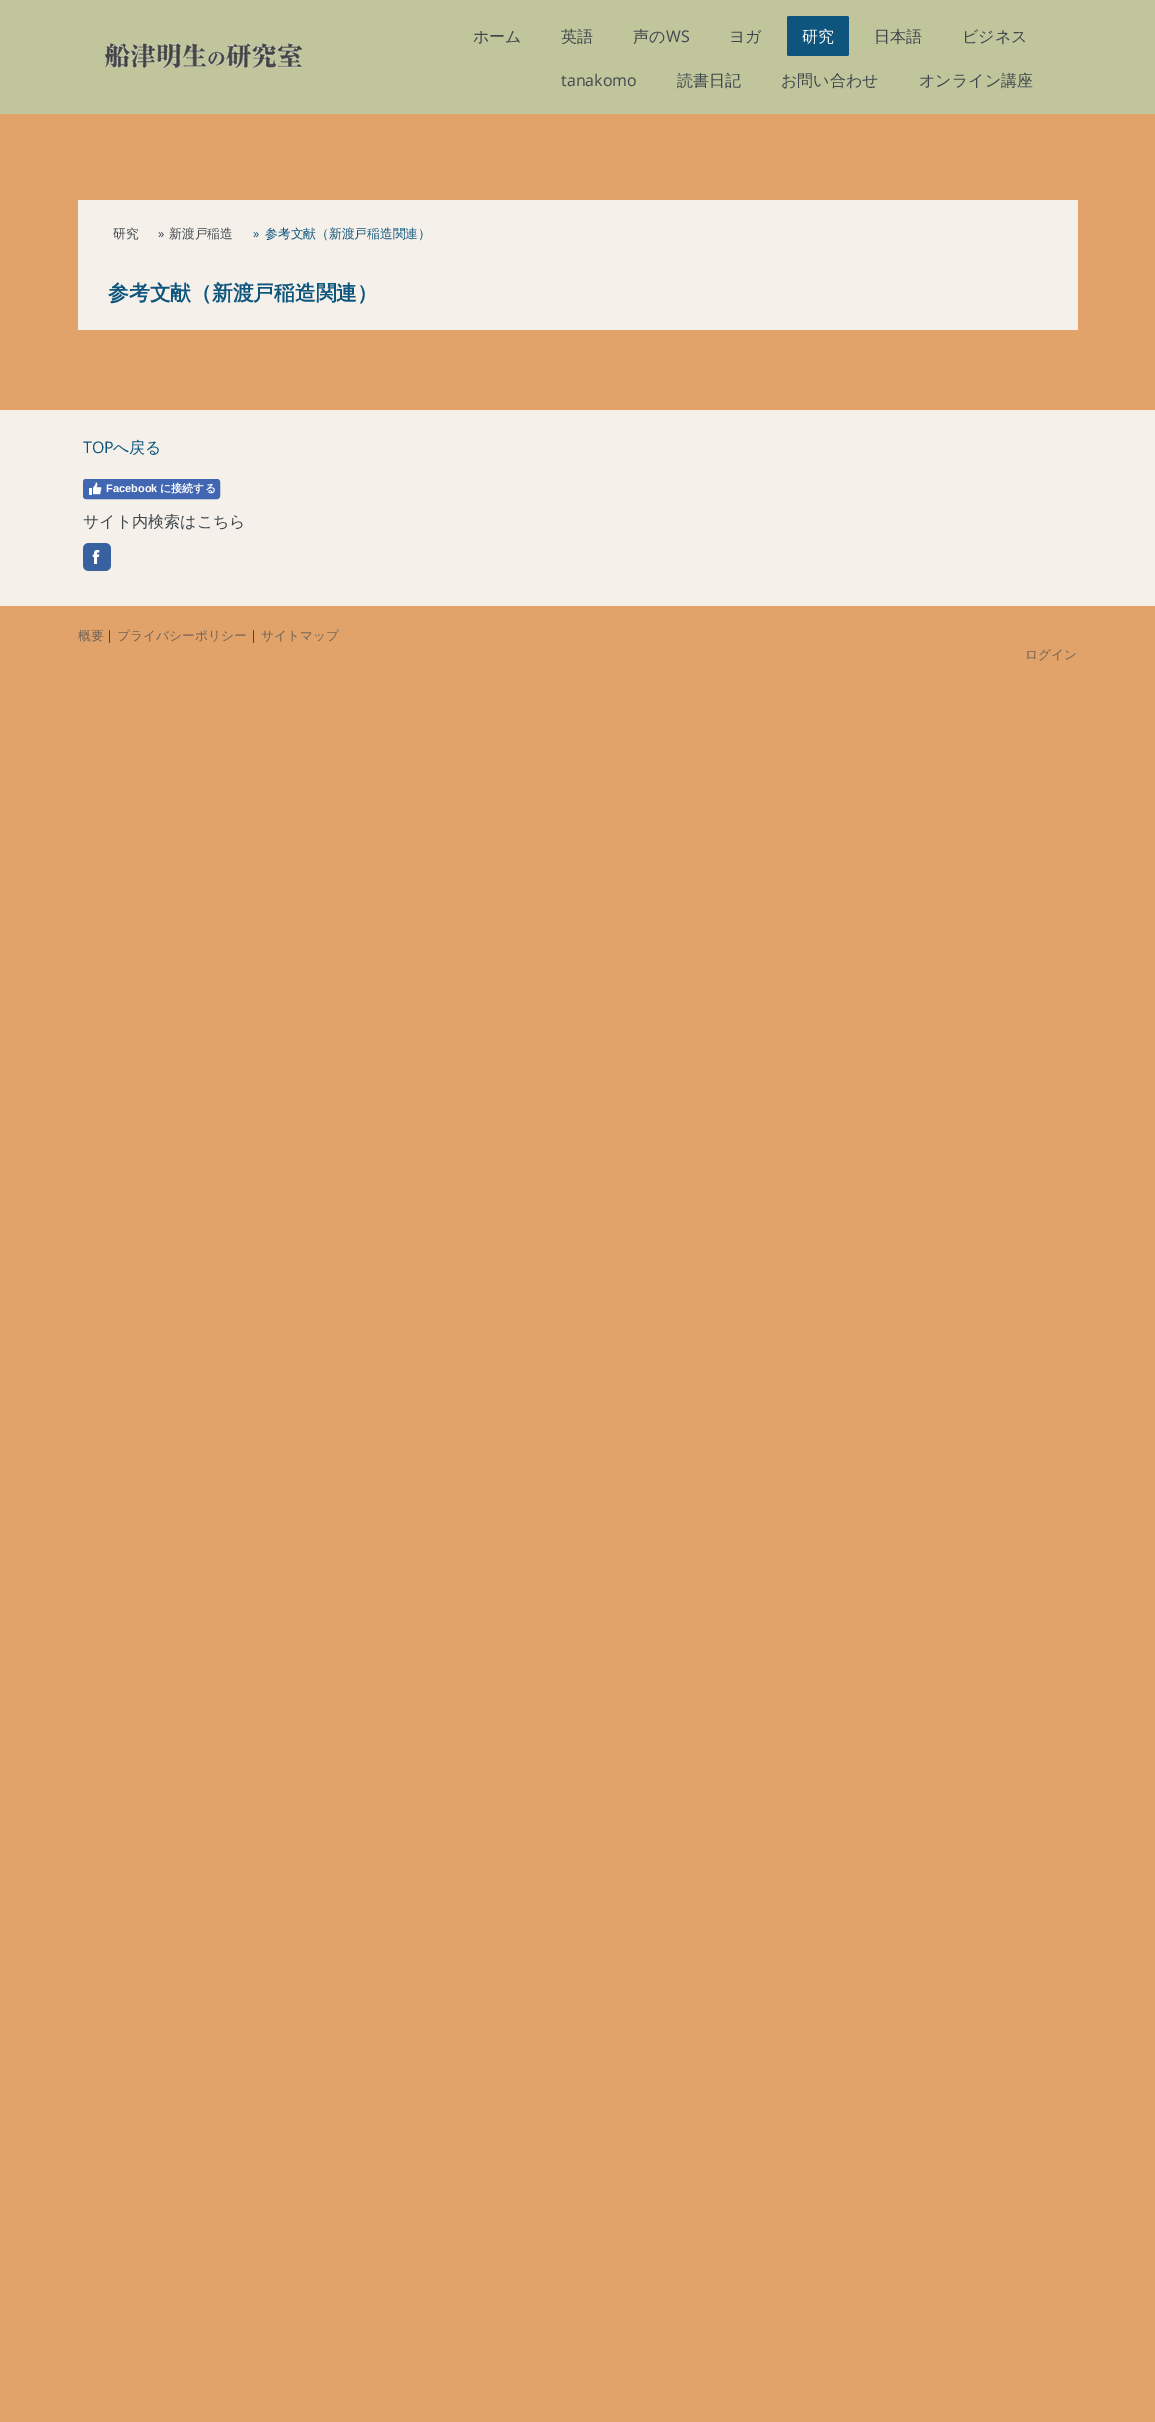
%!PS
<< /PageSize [1155 2422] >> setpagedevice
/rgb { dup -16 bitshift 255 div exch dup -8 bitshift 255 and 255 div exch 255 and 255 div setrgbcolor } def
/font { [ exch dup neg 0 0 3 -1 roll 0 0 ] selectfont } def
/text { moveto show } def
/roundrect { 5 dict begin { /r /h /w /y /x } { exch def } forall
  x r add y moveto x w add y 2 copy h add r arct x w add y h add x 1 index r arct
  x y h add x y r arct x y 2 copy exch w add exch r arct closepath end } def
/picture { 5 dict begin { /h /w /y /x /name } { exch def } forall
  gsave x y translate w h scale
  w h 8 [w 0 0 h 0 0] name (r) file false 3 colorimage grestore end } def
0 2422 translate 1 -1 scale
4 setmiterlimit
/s1 { /WenQuanYiZenHei-Medium 16 font 16#3E474C rgb } def
/s2 { /OpenSans-Regular 16 font 16#3E474C rgb } def
/s3 { /WenQuanYiZenHei-Medium 16 font 16#F7F8F8 rgb } def
/s4 { /WenQuanYiZenHei-Medium 12.75 font 16#3E474C rgb } def
/s5 { /OpenSans-Regular 12.75 font 16#3E474C rgb } def
/s6 { /OpenSans-Regular 12.75 font 16#0D557D rgb } def
/s7 { /WenQuanYiZenHei-Medium 12.75 font 16#0D557D rgb } def
/s8 { /WenQuanYiZenHei-Bold 20.75 font 16#0D557D rgb } def
/s9 { /OpenSans-Regular 16 font 16#0D557D rgb } def
/s10 { /WenQuanYiZenHei-Medium 16 font 16#0D557D rgb } def
/s11 { /LiberationSans-Bold 11 font 16#FFFFFF rgb } def
/s12 { /WenQuanYiZenHei-Bold 11 font 16#FFFFFF rgb } def
/s13 { /WenQuanYiZenHei-Medium 12.75 font 16#6F6355 rgb } def
16#E2A36A rgb
0 0 1155 2422 rectfill
16#C0C59C rgb
0 0 1155 114 rectfill
(pic1.raw) 104 43 199 26 picture
s1
(ホーム) 473 42 text
(英語) 561 42 text
(声の) 633 42 text
s2
(WS) 666 42 text
s1
(ヨガ) 729 42 text
16#0D557D rgb
787 16 62 40 2 roundrect fill
s3
(研究) 802 42 text
s1
(日本語) 874 42 text
(ビジネス) 962 42 text
s2
(tanakomo) 561 86 text
s1
(読書日記) 677 86 text
(お問い合わせ) 781 86 text
(オンライン講座) 919 86 text
16#F5F0EA rgb
78 200 1000 130 rectfill
s4
(研究) 113 238 text
s5
(») 158 238 text
s4
(新渡戸稲造) 169 238 text
s6
(») 253 238 text
s7
(参考文献（新渡戸稲造関連）) 265 238 text
s8
(参考文献（新渡戸稲造関連）) 108 300 text
16#F5F0EA rgb
0 410 1155 196 rectfill
s9
(TOP) 83 453 text
s10
(へ戻る) 113 453 text
16#4267B2 rgb
83.5 479.5 136 19 2.5 roundrect gsave fill grestore
stroke
(pic2.raw) 89 482 13 13 picture
s11
(Facebook) 106 492 text
s12
(に接続する) 160 492 text
s1
(サイト内検索はこちら) 83 527 text
(pic3.raw) 83 543 28 28 picture
(pic4.raw) 92 550 8 14 picture
s13
(概要) 78 640 text
s5
(|) 106 640 text
s13
(プライバシーポリシー) 117 640 text
s5
(|) 250 640 text
s13
(サイトマップ) 261 640 text
(ログイン) 1025 659 text
showpage
